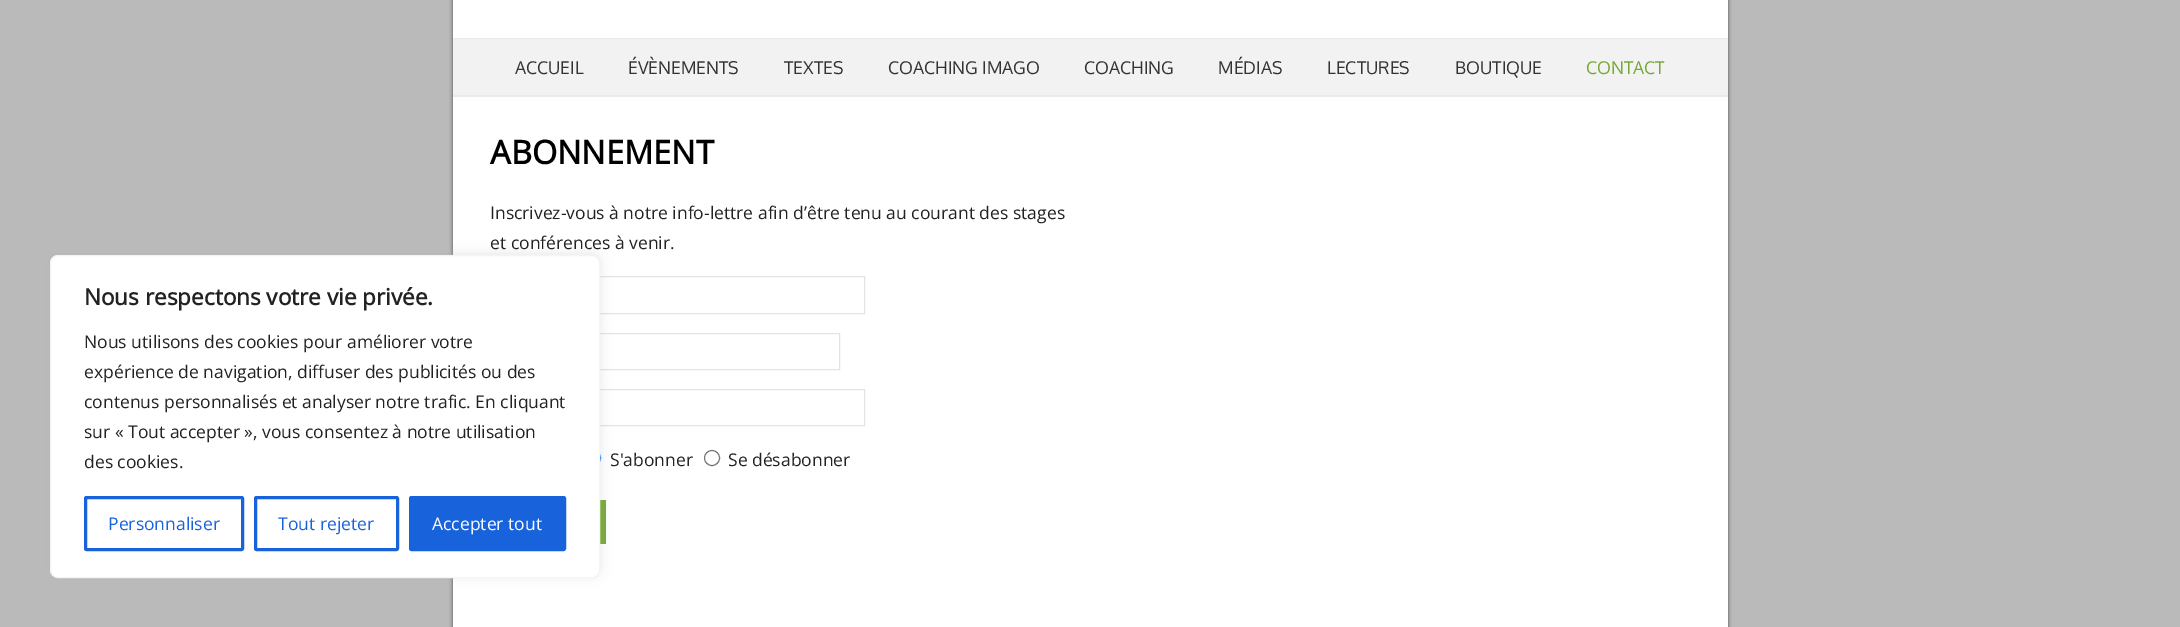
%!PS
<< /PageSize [2180 627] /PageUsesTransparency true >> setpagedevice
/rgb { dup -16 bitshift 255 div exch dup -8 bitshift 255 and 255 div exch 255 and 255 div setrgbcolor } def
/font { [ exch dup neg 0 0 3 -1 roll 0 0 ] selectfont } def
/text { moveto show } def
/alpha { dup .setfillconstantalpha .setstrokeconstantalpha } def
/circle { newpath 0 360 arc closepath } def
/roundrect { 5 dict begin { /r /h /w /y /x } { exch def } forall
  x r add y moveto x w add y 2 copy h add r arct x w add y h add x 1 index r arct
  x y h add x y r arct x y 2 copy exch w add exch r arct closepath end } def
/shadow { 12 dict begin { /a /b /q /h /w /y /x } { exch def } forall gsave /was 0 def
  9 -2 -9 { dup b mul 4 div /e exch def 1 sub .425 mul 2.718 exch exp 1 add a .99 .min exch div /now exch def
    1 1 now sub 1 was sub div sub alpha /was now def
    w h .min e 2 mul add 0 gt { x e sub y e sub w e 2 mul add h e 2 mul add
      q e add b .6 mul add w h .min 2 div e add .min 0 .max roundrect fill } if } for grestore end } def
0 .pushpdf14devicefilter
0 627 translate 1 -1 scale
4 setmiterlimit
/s1 { /OpenSans-Bold 22.5 font 16#222222 rgb } def
/s2 { /OpenSans-Regular 17.5 font 16#222222 rgb } def
/s3 { /OpenSans-Regular 17.5 font 16#1863DC rgb } def
/s4 { /OpenSans-Regular 17.5 font 16#FFFFFF rgb } def
/s5 { /Oxygen-Regular 17.5 font 16#333333 rgb } def
/s6 { /Oxygen-Regular 17.5 font 16#76A934 rgb } def
/s7 { /OpenSans-Bold 32.5 font 16#000000 rgb } def
16#BABABA rgb
0 0 2180 627 rectfill
16#444444 rgb
453 0 1275 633 0 2 1 shadow
16#FFFFFF rgb
453 0 1275 627 rectfill
16#E3E3E3 rgb
560.5 276.5 304 37 rectstroke
535.5 333.5 304 36 rectstroke
560.5 389.5 304 36 rectstroke
16#0075FF rgb
593 458 7.5 circle stroke
16#76A934 rgb
600 500 6 44 rectfill
16#ACABAB rgb
50 254 550 322 8 6 0.3 shadow
16#FFFFFF rgb
50.5 255.5 549 322 7.5 roundrect gsave fill grestore
16#F4F4F4 rgb
stroke
s1
(Nous respectons votre vie privée.) 84 305 text
s2
(Nous utilisons des cookies pour améliorer votre) 84 348 text
(expérience de navigation, diffuser des publicités ou des) 84 378 text
(contenus personnalisés et analyser notre trafic. En cliquant) 84 408 text
(sur « Tout accepter », vous consentez à notre utilisation) 84 438 text
(des cookies.) 84 468 text
16#1863DC rgb
3 setlinewidth
85.5 497.5 157 52 1 roundrect stroke
(Personnaliser) 108 530 text
255.5 497.5 142 52 1 roundrect stroke
(Tout rejeter) 278 530 text
410.5 497.5 154 52 1 roundrect gsave fill grestore
stroke
s4
(Accepter tout) 432 530 text
16#EBEBEB rgb
453 38 1275 1 rectfill
16#F2F2F2 rgb
453 39 1275 56 rectfill
16#EBEBEB rgb
453 95 1275 2 rectfill
s5
(ACCUEIL) 515 74 text
(ÉVÈNEMENTS) 628 74 text
(TEXTES) 784 74 text
(COACHING IMAGO) 888 74 text
(COACHING) 1084 74 text
(MÉDIAS) 1218 74 text
(LECTURES) 1327 74 text
(BOUTIQUE) 1455 74 text
s6
(CONTACT) 1586 74 text
s7
(ABONNEMENT) 490 164 text
s2
(Inscrivez-vous à notre info-lettre afin d’être tenu au courant des stages) 490 219 text
(et conférences à venir.) 490 249 text
(S'abonner) 610 466 text
16#767676 rgb
1 setlinewidth
712 458 7.5 circle stroke
s2
(Se désabonner) 728 466 text
.poppdf14devicefilter showpage
